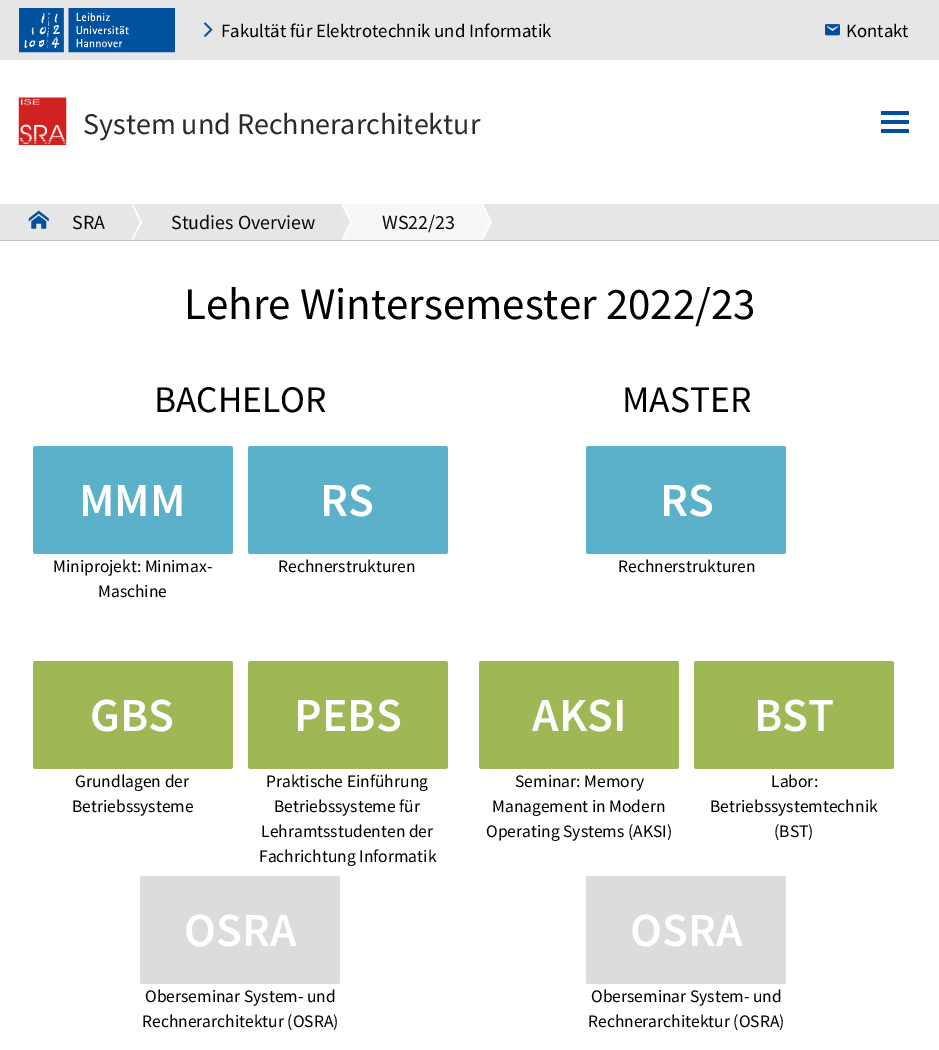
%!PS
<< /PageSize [939 1050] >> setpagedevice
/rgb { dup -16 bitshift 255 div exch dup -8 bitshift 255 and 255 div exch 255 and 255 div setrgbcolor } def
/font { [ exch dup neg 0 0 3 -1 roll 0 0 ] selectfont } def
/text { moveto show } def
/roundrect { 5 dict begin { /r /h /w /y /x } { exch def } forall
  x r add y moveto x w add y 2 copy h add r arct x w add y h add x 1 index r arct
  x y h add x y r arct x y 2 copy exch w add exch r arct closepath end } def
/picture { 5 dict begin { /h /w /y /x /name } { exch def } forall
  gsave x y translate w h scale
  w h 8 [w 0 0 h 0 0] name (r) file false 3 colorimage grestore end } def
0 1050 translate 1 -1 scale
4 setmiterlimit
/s1 { /SourceSansPro-Regular 18.75 font 16#000000 rgb } def
/s2 { /SourceSansPro-Regular 30 font 16#2B2B2B rgb } def
/s3 { /SourceSansPro-Regular 20 font 16#0A0A0A rgb } def
/s4 { /SourceSansPro-Regular 45 font 16#000000 rgb } def
/s5 { /SourceSansPro-Regular 37.5 font 16#000000 rgb } def
/s6 { /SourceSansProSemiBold-SemiBold 47.5 font 16#FFFFFF rgb } def
/s7 { /SourceSansPro-Regular 17.5 font 16#000000 rgb } def
16#FFFFFF rgb
0 0 939 1050 rectfill
16#E6E6E6 rgb
0 0 939 60 rectfill
(pic1.raw) 19 8 156 45 picture
(pic2.raw) 203 22 10 16 picture
s1
(Fakultät für Elektrotechnik und Informatik) 221 37 text
(pic3.raw) 825 24 15 12 picture
(Kontakt) 846 37 text
(pic4.raw) 18 97 49 48 picture
s2
(System und Rechnerarchitektur) 83 134 text
16#00509B rgb
881 111 28 4 1 roundrect fill
881 120 28 4 1 roundrect fill
881 129 28 4 1 roundrect fill
16#E6E6E6 rgb
0 204 939 36 rectfill
gsave
10 204 133 36 rectclip
16#FFFFFF rgb
132 242 moveto 132 202 lineto 142 222 lineto closepath fill
16#E7E7E7 rgb
130 242 moveto 130 202 lineto 140 222 lineto closepath fill
grestore
(pic5.raw) 28 210 21 19 picture
s3
(SRA) 72 229 text
16#F7F7F7 rgb
344 204 138 36 rectfill
gsave
134 204 219 36 rectclip
16#FFFFFF rgb
342 242 moveto 342 202 lineto 352 222 lineto closepath fill
16#E7E7E7 rgb
340 242 moveto 340 202 lineto 350 222 lineto closepath fill
grestore
s3
(Studies Overview) 171 229 text
gsave
344 204 149 36 rectclip
16#FFFFFF rgb
482 242 moveto 482 202 lineto 492 222 lineto closepath fill
16#F7F7F7 rgb
480 242 moveto 480 202 lineto 490 222 lineto closepath fill
grestore
(WS22/23) 382 229 text
16#C0C0C0 rgb
0 240 939 1 rectfill
s4
(Lehre Wintersemester 2022/23) 184 319 text
s5
(BACHELOR) 154 412 text
16#5AB1C9 rgb
33 446 200 108 2.5 roundrect fill
s6
(MMM) 79 516 text
s7
(Miniprojekt: Minimax-) 53 572 text
(Maschine) 98 597 text
16#5AB1C9 rgb
248 446 200 108 2.5 roundrect fill
s6
(RS) 320 516 text
s7
(Rechnerstrukturen) 278 572 text
16#9DB854 rgb
33 661 200 108 2.5 roundrect fill
s6
(GBS) 90 731 text
s7
(Grundlagen der) 75 787 text
(Betriebssysteme) 72 812 text
16#9DB854 rgb
248 661 200 108 2.5 roundrect fill
s6
(PEBS) 294 731 text
s7
(Praktische Einführung) 266 787 text
(Betriebssysteme für) 274 812 text
(Lehramtsstudenten der) 261 837 text
(Fachrichtung Informatik) 259 862 text
16#DCDCDC rgb
140 876 200 108 2.5 roundrect fill
s6
(OSRA) 184 946 text
s7
(Oberseminar System- und) 145 1002 text
(Rechnerarchitektur \(OSRA\)) 142 1027 text
s5
(MASTER) 622 412 text
16#5AB1C9 rgb
586 446 200 108 2.5 roundrect fill
s6
(RS) 660 516 text
s7
(Rechnerstrukturen) 618 572 text
16#9DB854 rgb
479 661 200 108 2.5 roundrect fill
s6
(AKSI) 532 731 text
s7
(Seminar: Memory) 515 787 text
(Management in Modern) 492 812 text
(Operating Systems \(AKSI\)) 486 837 text
16#9DB854 rgb
694 661 200 108 2.5 roundrect fill
s6
(BST) 754 731 text
s7
(Labor:) 771 787 text
(Betriebssystemtechnik) 710 812 text
(\(BST\)) 774 837 text
16#DCDCDC rgb
586 876 200 108 2.5 roundrect fill
s6
(OSRA) 630 946 text
s7
(Oberseminar System- und) 591 1002 text
(Rechnerarchitektur \(OSRA\)) 588 1027 text
showpage
